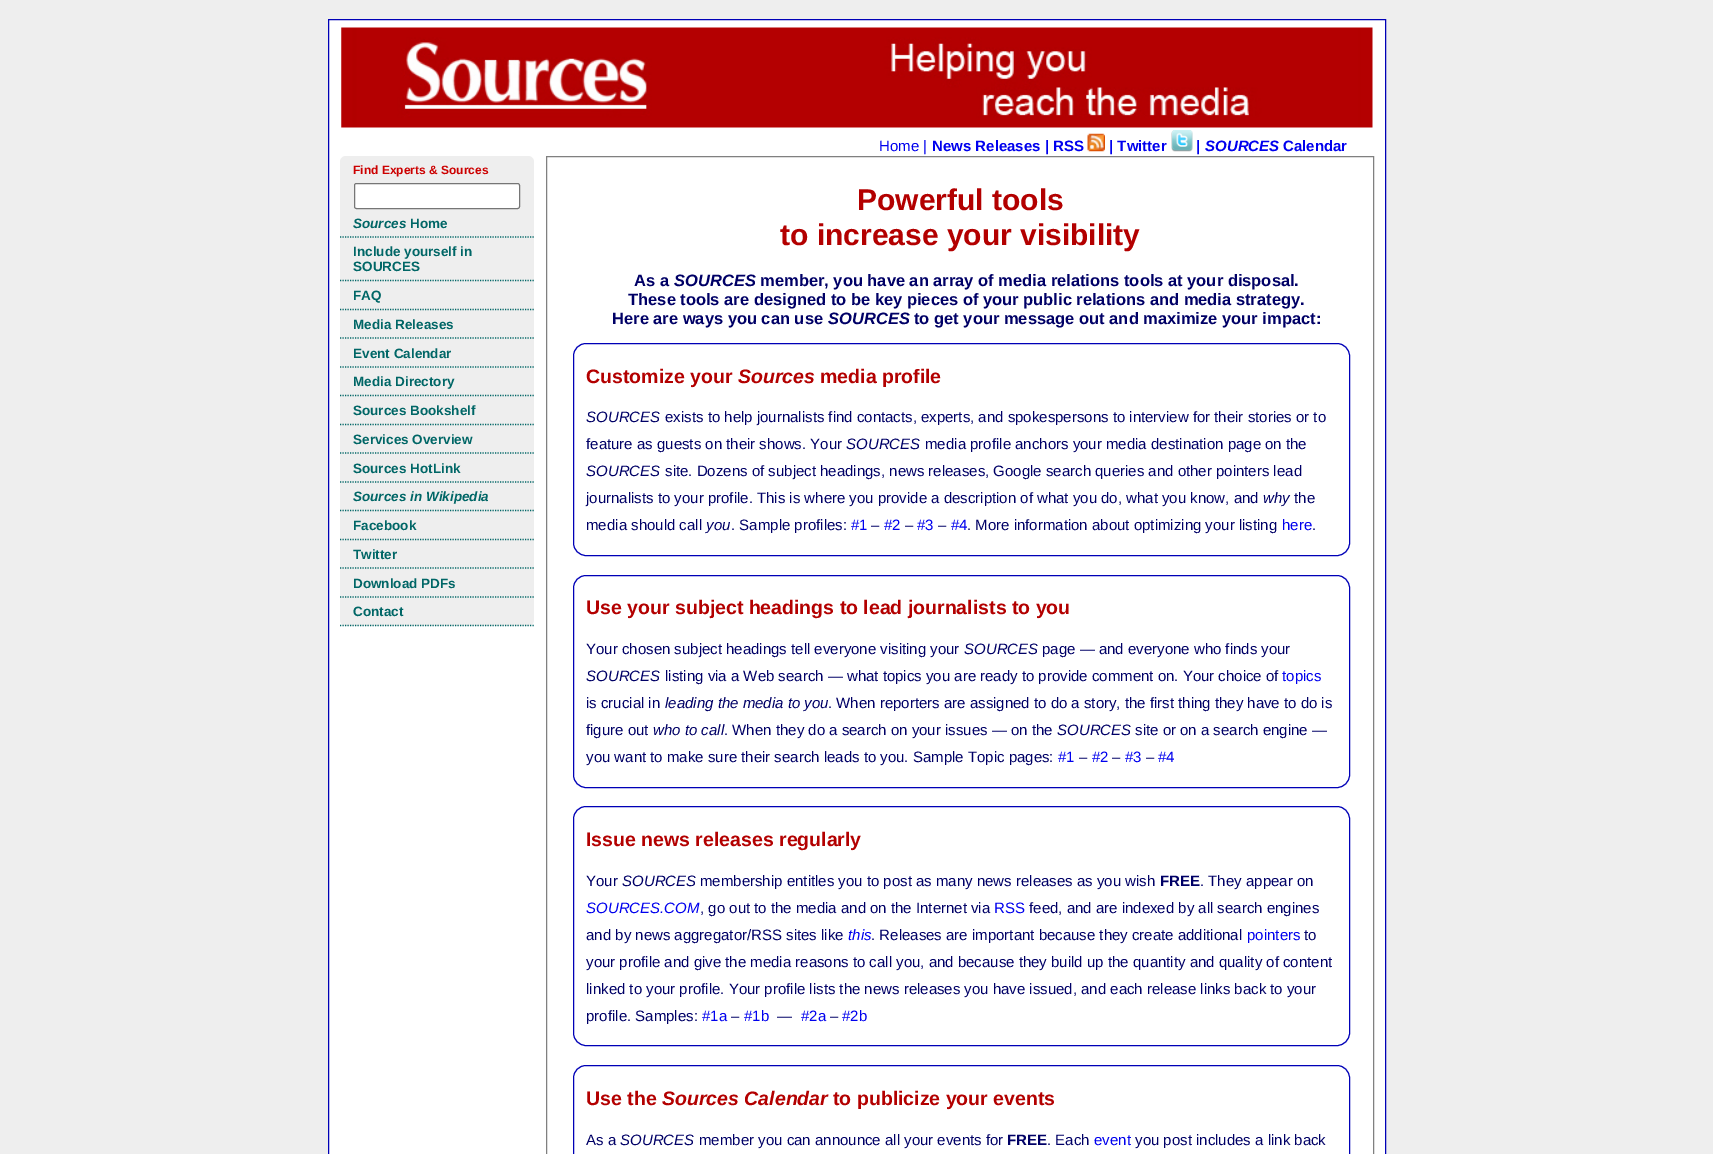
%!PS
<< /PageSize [1713 1154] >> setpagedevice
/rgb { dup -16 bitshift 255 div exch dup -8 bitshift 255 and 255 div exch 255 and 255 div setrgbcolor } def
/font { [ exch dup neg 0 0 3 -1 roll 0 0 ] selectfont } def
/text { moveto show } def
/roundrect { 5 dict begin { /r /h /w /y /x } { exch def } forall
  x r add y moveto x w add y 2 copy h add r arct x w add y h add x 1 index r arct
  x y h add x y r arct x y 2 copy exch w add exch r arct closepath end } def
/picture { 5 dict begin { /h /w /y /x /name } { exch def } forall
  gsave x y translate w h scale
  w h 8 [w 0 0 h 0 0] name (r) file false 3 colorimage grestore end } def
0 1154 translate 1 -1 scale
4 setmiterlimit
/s1 { /LiberationSans-Regular 15 font 16#0000EE rgb } def
/s2 { /LiberationSans-Bold 15 font 16#0000EE rgb } def
/s3 { /LiberationSans-BoldItalic 15 font 16#0000EE rgb } def
/s4 { /LiberationSans-Bold 12 font 16#CC0000 rgb } def
/s5 { /LiberationSans-BoldItalic 13.5 font 16#006666 rgb } def
/s6 { /LiberationSans-Bold 13.5 font 16#006666 rgb } def
/s7 { /LiberationSans-Bold 30 font 16#B30000 rgb } def
/s8 { /LiberationSans-Bold 16.5 font 16#000066 rgb } def
/s9 { /LiberationSans-BoldItalic 16.5 font 16#000066 rgb } def
/s10 { /LiberationSans-Bold 19.5 font 16#B30000 rgb } def
/s11 { /LiberationSans-BoldItalic 19.5 font 16#B30000 rgb } def
/s12 { /LiberationSans-Italic 15 font 16#000066 rgb } def
/s13 { /LiberationSans-Regular 15 font 16#000066 rgb } def
/s14 { /LiberationSans-Bold 15 font 16#000066 rgb } def
/s15 { /LiberationSans-Italic 15 font 16#0000EE rgb } def
16#EEEEEE rgb
0 0 1713 1154 rectfill
16#FFFFFF rgb
328.5 19.5 moveto 1385.5 19.5 lineto 1385.5 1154.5 lineto 328.5 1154.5 lineto closepath gsave fill grestore
16#0000B7 rgb
stroke
(pic1.raw) 341 27 1032 101 picture
s1
(Home |) 879 151 text
s2
(News Releases | RSS) 932 151 text
(pic2.raw) 1087 133 18 19 picture
(| Twitter) 1109 151 text
(pic3.raw) 1171 130 22 22 picture
(|) 1196 151 text
s3
(SOURCES) 1205 151 text
s2
(Calendar) 1283 151 text
16#EEEEEE rgb
340 156 194 470 6 roundrect fill
s4
(Find Experts & Sources) 353 174 text
16#FFFFFF rgb
354.5 183.5 165 25 2 roundrect gsave fill grestore
16#767676 rgb
stroke
16#006666 rgb
1.2 setlinewidth
[1.25 1.25] 0 setdash
340 237 moveto 534 237 lineto stroke
s5
(Sources) 353 228 text
s6
(Home) 410 228 text
340 280.5 moveto 534 280.5 lineto stroke
(Include yourself in) 353 256 text
(SOURCES) 353 271 text
340 309.5 moveto 534 309.5 lineto stroke
(FAQ) 353 300 text
340 338 moveto 534 338 lineto stroke
(Media Releases) 353 329 text
340 367 moveto 534 367 lineto stroke
(Event Calendar) 353 358 text
340 395.5 moveto 534 395.5 lineto stroke
(Media Directory) 353 386 text
340 424.5 moveto 534 424.5 lineto stroke
(Sources Bookshelf) 353 415 text
340 453 moveto 534 453 lineto stroke
(Services Overview) 353 444 text
340 482 moveto 534 482 lineto stroke
(Sources HotLink) 353 473 text
340 510.5 moveto 534 510.5 lineto stroke
s5
(Sources in Wikipedia) 353 501 text
340 539.5 moveto 534 539.5 lineto stroke
s6
(Facebook) 353 530 text
340 568 moveto 534 568 lineto stroke
(Twitter) 353 559 text
340 597 moveto 534 597 lineto stroke
(Download PDFs) 353 588 text
340 625.5 moveto 534 625.5 lineto stroke
(Contact) 353 616 text
16#808080 rgb
1 setlinewidth
[] 0 setdash
546.5 156.5 827 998 rectstroke
s7
(Powerful tools) 857 210 text
(to increase your visibility) 780 245 text
s8
(As a) 634 286 text
s9
(SOURCES) 674 286 text
s8
(member, you have an array of media relations tools at your disposal.) 760 286 text
(These tools are designed to be key pieces of your public relations and media strategy.) 628 305 text
(Here are ways you can use) 612 324 text
s9
(SOURCES) 828 324 text
s8
(to get your message out and maximize your impact:) 914 324 text
16#0000B7 rgb
573.5 343.5 776 212 12.5 roundrect stroke
s10
(Customize your) 586 383 text
s11
(Sources) 738 383 text
s10
(media profile) 820 383 text
s12
(SOURCES) 586 422 text
s13
(exists to help journalists find contacts, experts, and spokespersons to interview for their stories or to) 665 422 text
(feature as guests on their shows. Your) 586 449 text
s12
(SOURCES) 846 449 text
s13
(media profile anchors your media destination page on the) 925 449 text
s12
(SOURCES) 586 476 text
s13
(site. Dozens of subject headings, news releases, Google search queries and other pointers lead) 665 476 text
(journalists to your profile. This is where you provide a description of what you do, what you know, and) 586 503 text
s12
(why) 1263 503 text
s13
(the) 1294 503 text
(media should call) 586 530 text
s12
(you) 706 530 text
s13
(. Sample profiles:) 731 530 text
s1
(#1) 851 530 text
s13
(–) 871 530 text
s1
(#2) 884 530 text
s13
(–) 905 530 text
s1
(#3) 917 530 text
s13
(–) 938 530 text
s1
(#4) 951 530 text
s13
(. More information about optimizing your listing) 967 530 text
s1
(here) 1282 530 text
s13
(.) 1312 530 text
16#0000B7 rgb
573.5 575.5 776 212 12.5 roundrect stroke
s10
(Use your subject headings to lead journalists to you) 586 614 text
s13
(Your chosen subject headings tell everyone visiting your) 586 654 text
s12
(SOURCES) 964 654 text
s13
(page — and everyone who finds your) 1042 654 text
s12
(SOURCES) 586 681 text
s13
(listing via a Web search — what topics you are ready to provide comment on. Your choice of) 665 681 text
s1
(topics) 1282 681 text
s13
(is crucial in) 586 708 text
s12
(leading the media to you) 665 708 text
s13
(. When reporters are assigned to do a story, the first thing they have to do is) 828 708 text
(figure out) 586 735 text
s12
(who to call) 653 735 text
s13
(. When they do a search on your issues — on the) 724 735 text
s12
(SOURCES) 1057 735 text
s13
(site or on a search engine —) 1135 735 text
(you want to make sure their search leads to you. Sample Topic pages:) 586 762 text
s1
(#1) 1058 762 text
s13
(–) 1079 762 text
s1
(#2) 1092 762 text
s13
(–) 1112 762 text
s1
(#3) 1125 762 text
s13
(–) 1146 762 text
s1
(#4) 1158 762 text
16#0000B7 rgb
573.5 806.5 776 239 12.5 roundrect stroke
s10
(Issue news releases regularly) 586 846 text
s13
(Your) 586 886 text
s12
(SOURCES) 622 886 text
s13
(membership entitles you to post as many news releases as you wish) 700 886 text
s14
(FREE) 1160 886 text
s13
(. They appear on) 1200 886 text
s15
(SOURCES.COM) 586 913 text
s13
(, go out to the media and on the Internet via) 700 913 text
s1
(RSS) 994 913 text
s13
(feed, and are indexed by all search engines) 1029 913 text
(and by news aggregator/RSS sites like) 586 940 text
s15
(this) 848 940 text
s13
(. Releases are important because they create additional) 871 940 text
s1
(pointers) 1247 940 text
s13
(to) 1304 940 text
(your profile and give the media reasons to call you, and because they build up the quantity and quality of content) 586 967 text
(linked to your profile. Your profile lists the news releases you have issued, and each release links back to your) 586 994 text
(profile. Samples:) 586 1021 text
s1
(#1a) 702 1021 text
s13
(–) 731 1021 text
s1
(#1b) 744 1021 text
s13
(—) 777 1021 text
s1
(#2a) 801 1021 text
s13
(–) 830 1021 text
s1
(#2b) 842 1021 text
16#0000B7 rgb
573.5 1065.5 776 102 12.5 roundrect stroke
s10
(Use the) 586 1105 text
s11
(Sources Calendar) 662 1105 text
s10
(to publicize your events) 833 1105 text
s13
(As a) 586 1145 text
s12
(SOURCES) 620 1145 text
s13
(member you can announce all your events for) 699 1145 text
s14
(FREE) 1007 1145 text
s13
(. Each) 1047 1145 text
s1
(event) 1094 1145 text
s13
(you post includes a link back) 1135 1145 text
showpage
